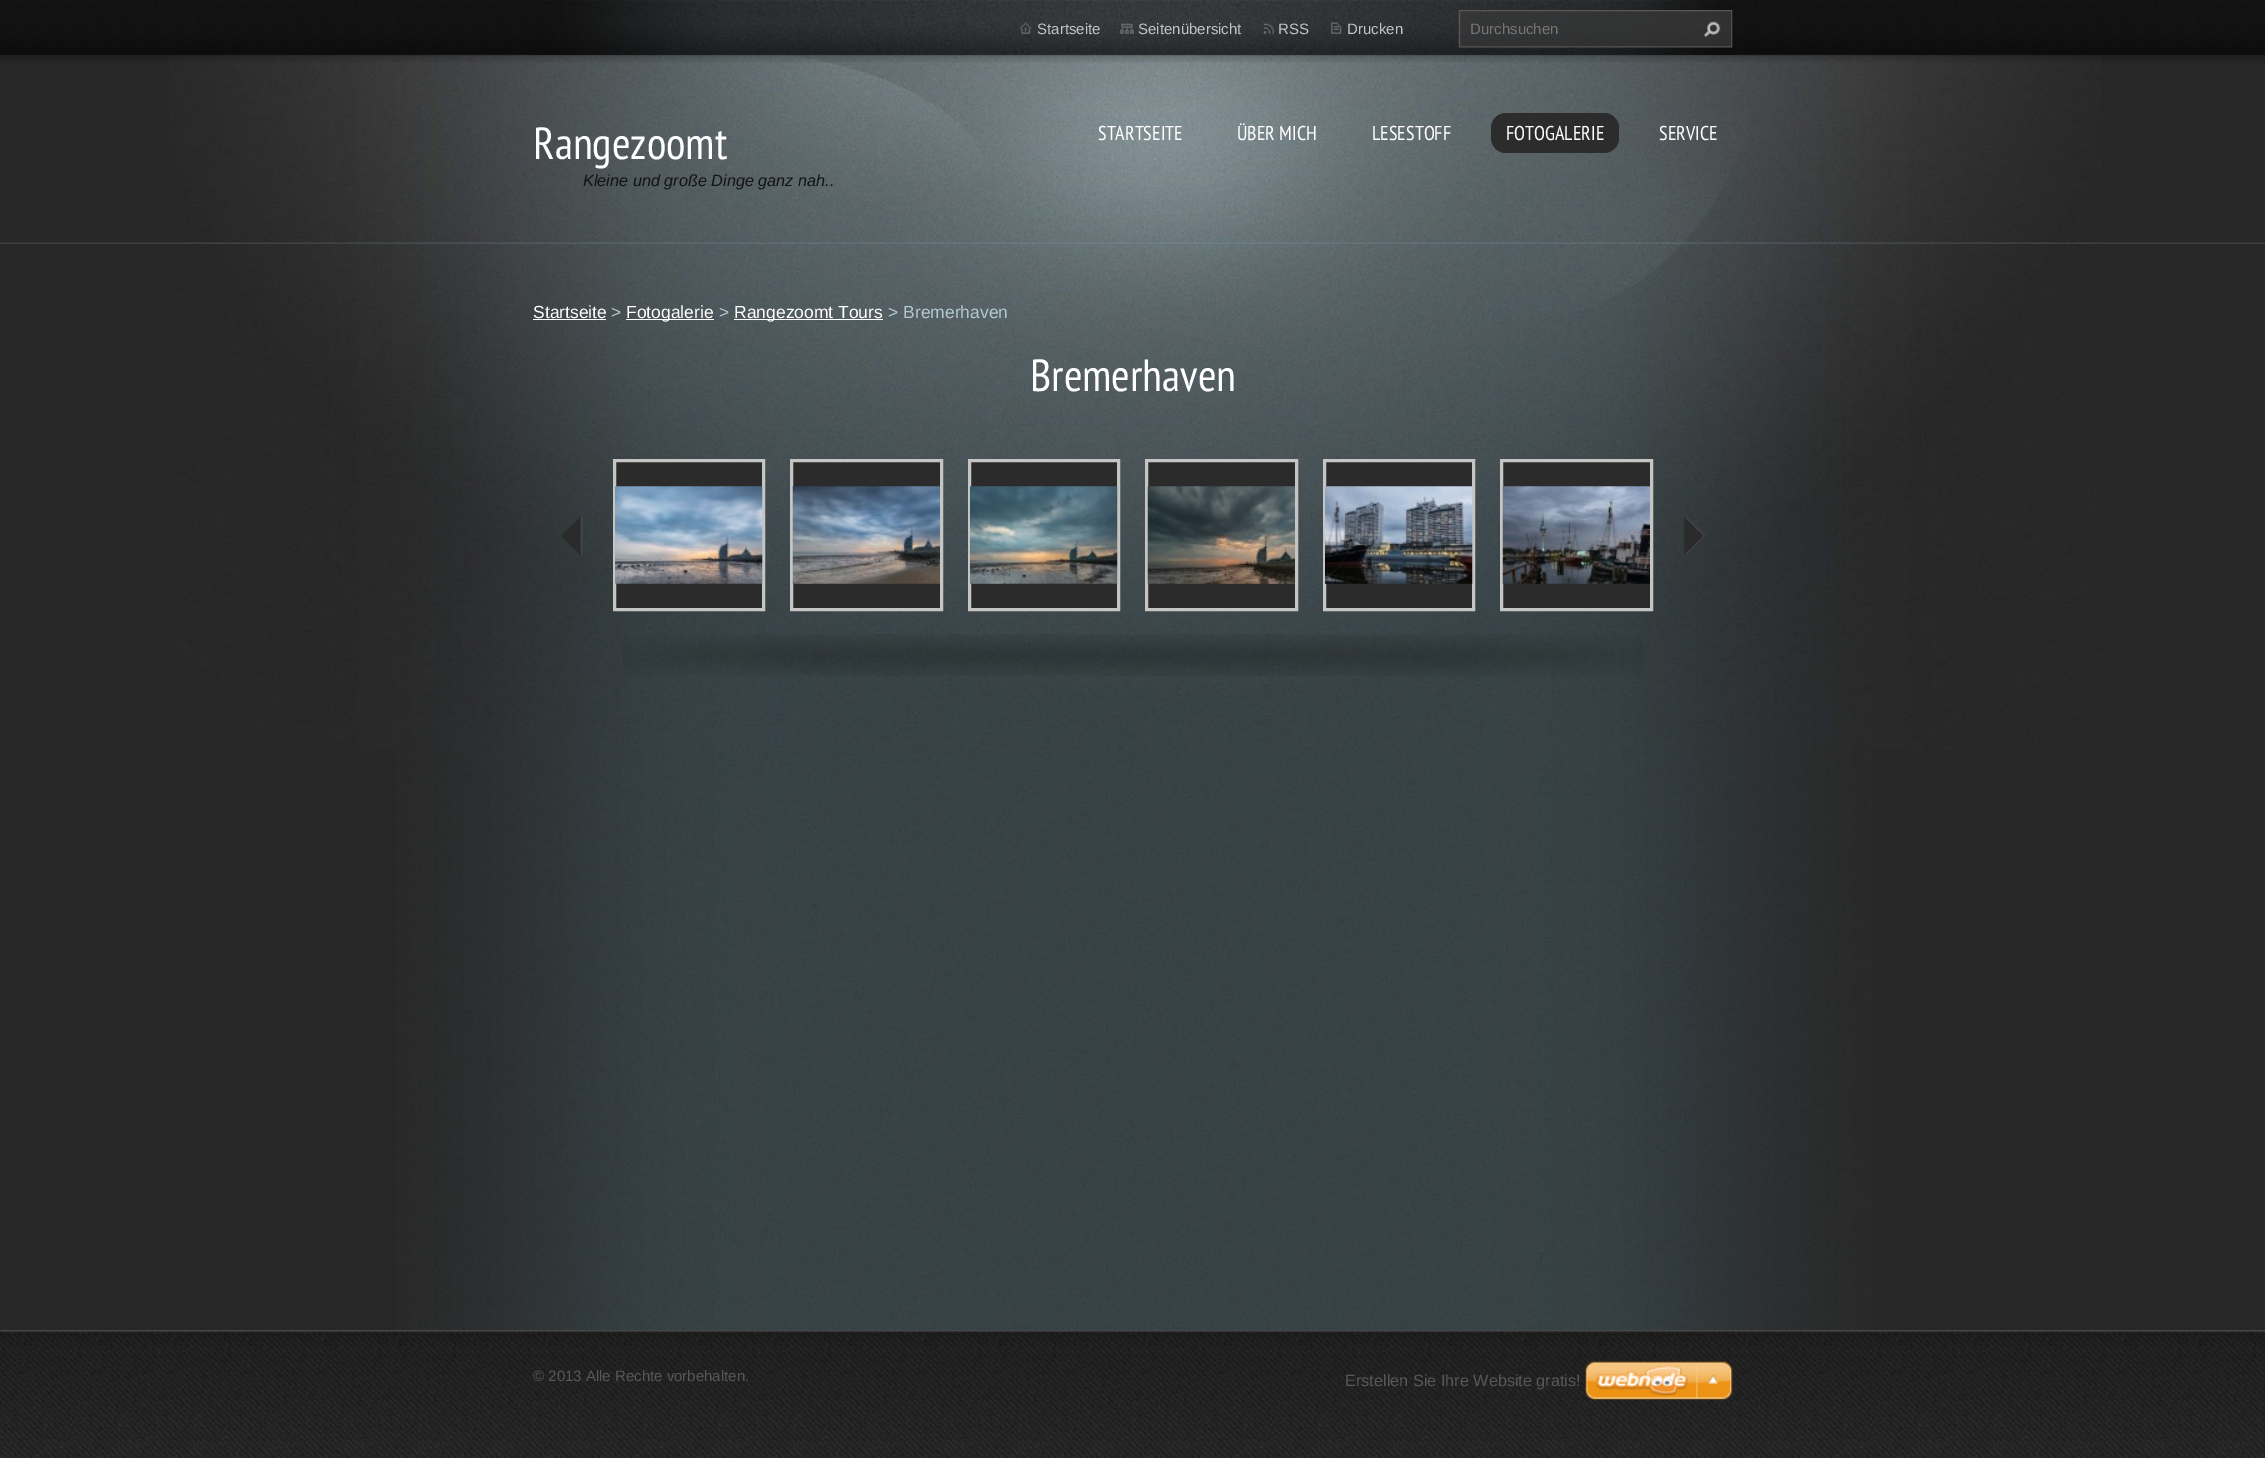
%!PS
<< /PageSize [2265 1458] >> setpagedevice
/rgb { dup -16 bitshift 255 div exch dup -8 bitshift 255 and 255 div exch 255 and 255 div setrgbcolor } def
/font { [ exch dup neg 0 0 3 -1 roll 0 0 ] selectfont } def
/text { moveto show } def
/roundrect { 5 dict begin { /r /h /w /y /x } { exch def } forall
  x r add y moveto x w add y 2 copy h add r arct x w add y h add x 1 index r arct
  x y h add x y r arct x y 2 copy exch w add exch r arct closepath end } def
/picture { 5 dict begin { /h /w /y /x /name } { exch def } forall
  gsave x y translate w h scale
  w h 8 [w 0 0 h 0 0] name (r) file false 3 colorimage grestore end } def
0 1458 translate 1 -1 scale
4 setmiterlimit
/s1 { /LiberationSans-Regular 15 font 16#C3C3C3 rgb } def
/s2 { /LiberationSans-Regular 15 font 16#757575 rgb } def
/s3 { /PTSansNarrow-Regular 45 font 16#FFFFFF rgb } def
/s4 { /LiberationSans-Italic 16.25 font 16#121313 rgb } def
/s5 { /PTSansNarrow-Regular 20 font 16#FFFFFF rgb } def
/s6 { /LiberationSans-Regular 17.5 font 16#FFFFFF rgb } def
/s7 { /LiberationSans-Regular 17.5 font 16#B3C9D3 rgb } def
/s8 { /LiberationSans-Regular 15 font 16#585858 rgb } def
/s9 { /LiberationSans-Regular 16.25 font 16#585858 rgb } def
16#272727 rgb
0 0 2265 1458 rectfill
(pic1.raw) 396 750 1476 580 picture
(pic2.raw) 169 54 1933 696 picture
(pic3.raw) 0 242 2265 2 picture
(pic4.raw) 0 0 2265 63 picture
(pic5.raw) 533 0 1199 55 picture
(pic6.raw) 1020 22 12 12 picture
s1
(Startseite) 1037 34 text
(pic7.raw) 1120 23 14 11 picture
(Seitenübersicht) 1138 34 text
(pic8.raw) 1263 23 11 11 picture
(RSS) 1278 34 text
(pic9.raw) 1331 22 11 12 picture
(Drucken) 1347 34 text
(pic10.raw) 1458 10 275 38 picture
s2
(Durchsuchen) 1470 34 text
(pic11.raw) 1703 21 18 17 picture
s3
(Rangezoomt) 533 159 text
s4
(Kleine und große Dinge ganz nah..) 583 186 text
s5
(STARTSEITE) 1098 140 text
(ÜBER MICH) 1237 140 text
(LESESTOFF) 1372 140 text
16#2C2C2C rgb
1491 113 128 40 15 roundrect fill
s5
(FOTOGALERIE) 1506 140 text
(SERVICE) 1659 140 text
s6
(Startseite) 533 318 text
533 319 73 1 rectfill
s7
(>) 611 318 text
16#FFFFFF rgb
626 319 88 1 rectfill
(Fotogalerie) 626 318 text
s7
(>) 719 318 text
16#FFFFFF rgb
734 319 149 1 rectfill
(Rangezoomt Tours) 734 318 text
s7
(> Bremerhaven) 888 318 text
s3
(Bremerhaven) 1030 391 text
(pic12.raw) 623 634 1021 42 picture
(pic13.raw) 561 516 22 39 picture
16#2B2B2B rgb
614.5 460.5 moveto 763.5 460.5 lineto 763.5 609.5 lineto 614.5 609.5 lineto closepath gsave fill grestore
16#C5C5C4 rgb
3 setlinewidth
stroke
(pic14.raw) 615 486 148 98 picture
16#2B2B2B rgb
791.5 460.5 moveto 941.5 460.5 lineto 941.5 609.5 lineto 791.5 609.5 lineto closepath gsave fill grestore
16#C5C5C4 rgb
stroke
(pic15.raw) 792 486 148 98 picture
16#2B2B2B rgb
969.5 460.5 moveto 1118.5 460.5 lineto 1118.5 609.5 lineto 969.5 609.5 lineto closepath gsave fill grestore
16#C5C5C4 rgb
stroke
(pic16.raw) 970 486 148 98 picture
16#2B2B2B rgb
1146.5 460.5 moveto 1296.5 460.5 lineto 1296.5 609.5 lineto 1146.5 609.5 lineto closepath gsave fill grestore
16#C5C5C4 rgb
stroke
(pic17.raw) 1147 486 148 98 picture
16#2B2B2B rgb
1324.5 460.5 moveto 1473.5 460.5 lineto 1473.5 609.5 lineto 1324.5 609.5 lineto closepath gsave fill grestore
16#C5C5C4 rgb
stroke
(pic18.raw) 1325 486 148 98 picture
16#2B2B2B rgb
1501.5 460.5 moveto 1651.5 460.5 lineto 1651.5 609.5 lineto 1501.5 609.5 lineto closepath gsave fill grestore
16#C5C5C4 rgb
stroke
(pic19.raw) 1502 486 148 98 picture
(pic20.raw) 1683 516 22 39 picture
(pic21.raw) 0 1330 2265 128 picture
gsave
533 1330 600 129 rectclip
s8
(© 2013 Alle Rechte vorbehalten.) 533 1381 text
grestore
s9
(Erstellen Sie Ihre Website gratis!) 1345 1386 text
(pic22.raw) 1585 1361 148 39 picture
showpage
